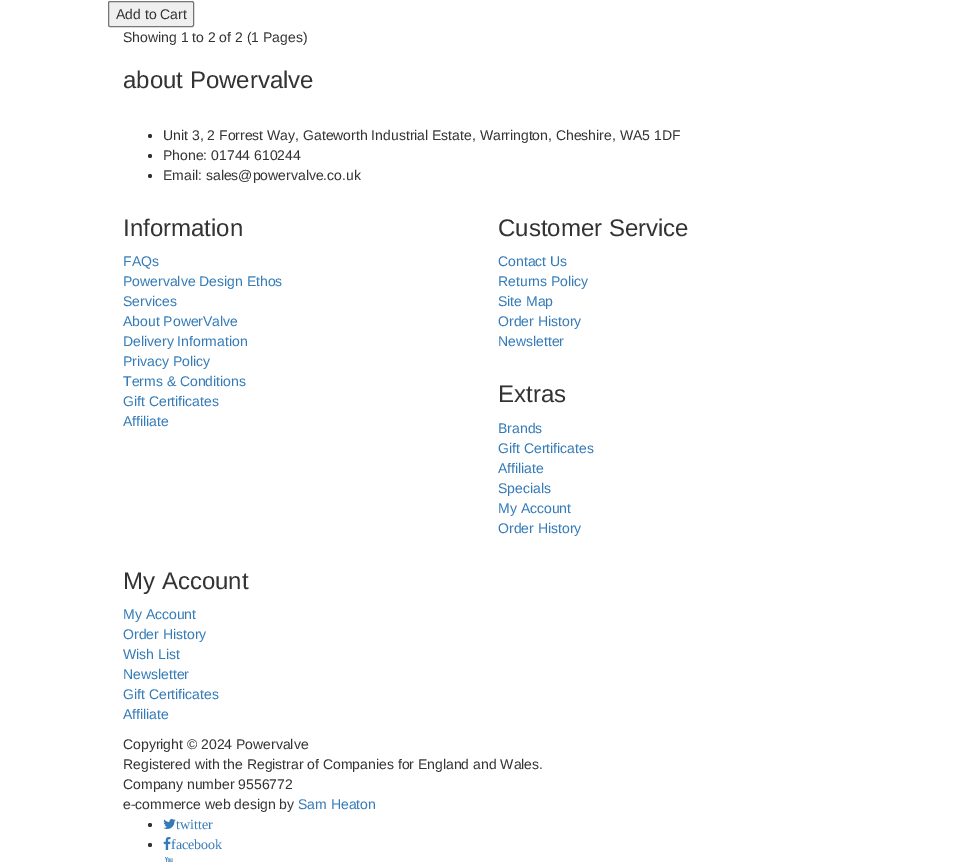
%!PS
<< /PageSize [965 862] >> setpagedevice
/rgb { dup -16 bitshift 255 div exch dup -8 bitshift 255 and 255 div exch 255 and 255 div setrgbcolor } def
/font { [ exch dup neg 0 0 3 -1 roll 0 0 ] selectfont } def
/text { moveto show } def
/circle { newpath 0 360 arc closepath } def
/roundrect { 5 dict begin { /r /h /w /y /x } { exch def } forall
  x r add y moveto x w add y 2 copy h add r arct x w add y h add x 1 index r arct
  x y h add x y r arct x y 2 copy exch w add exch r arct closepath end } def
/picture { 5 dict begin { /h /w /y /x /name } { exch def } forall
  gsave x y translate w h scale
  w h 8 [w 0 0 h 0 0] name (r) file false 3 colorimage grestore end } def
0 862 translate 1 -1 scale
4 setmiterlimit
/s1 { /LiberationSans-Regular 14 font 16#333333 rgb } def
/s2 { /LiberationSans-Regular 24 font 16#333333 rgb } def
/s3 { /LiberationSans-Regular 14 font 16#337AB7 rgb } def
/s4 { /LiberationSerif-Regular 14 font 16#337AB7 rgb } def
16#FFFFFF rgb
0 0 965 862 rectfill
16#EFEFEF rgb
108.5 1.5 85 25 1.5 roundrect gsave fill grestore
16#767676 rgb
stroke
s1
(Add to Cart) 116 19 text
(Showing 1 to 2 of 2 \(1 Pages\)) 123 42 text
s2
(about Powervalve) 123 88 text
150 136 2 circle fill
s1
(Unit 3, 2 Forrest Way, Gateworth Industrial Estate, Warrington, Cheshire, WA5 1DF) 163 140 text
150 156 2 circle fill
(Phone: 01744 610244) 163 160 text
150 176 2 circle fill
(Email: sales@powervalve.co.uk) 163 180 text
s2
(Information) 123 236 text
s3
(FAQs) 123 266 text
(Powervalve Design Ethos) 123 286 text
(Services) 123 306 text
(About PowerValve) 123 326 text
(Delivery Information) 123 346 text
(Privacy Policy) 123 366 text
(Terms & Conditions) 123 386 text
(Gift Certificates) 123 406 text
(Affiliate) 123 426 text
s2
(Customer Service) 498 236 text
s3
(Contact Us) 498 266 text
(Returns Policy) 498 286 text
(Site Map) 498 306 text
(Order History) 498 326 text
(Newsletter) 498 346 text
s2
(Extras) 498 402 text
s3
(Brands) 498 433 text
(Gift Certificates) 498 453 text
(Affiliate) 498 473 text
(Specials) 498 493 text
(My Account) 498 513 text
(Order History) 498 533 text
s2
(My Account) 123 589 text
s3
(My Account) 123 619 text
(Order History) 123 639 text
(Wish List) 123 659 text
(Newsletter) 123 679 text
(Gift Certificates) 123 699 text
(Affiliate) 123 719 text
s1
(Copyright © 2024 Powervalve) 123 749 text
(Registered with the Registrar of Companies for England and Wales.) 123 769 text
(Company number 9556772) 123 789 text
(e-commerce web design by) 123 809 text
s3
(Sam Heaton) 298 809 text
16#333333 rgb
150 825 2 circle fill
(pic1.raw) 163 819 13 10 picture
s4
(twitter) 176 829 text
16#333333 rgb
150 845 2 circle fill
(pic2.raw) 163 837 8 13 picture
s4
(facebook) 171 849 text
(pic3.raw) 165 857 8 5 picture
showpage
